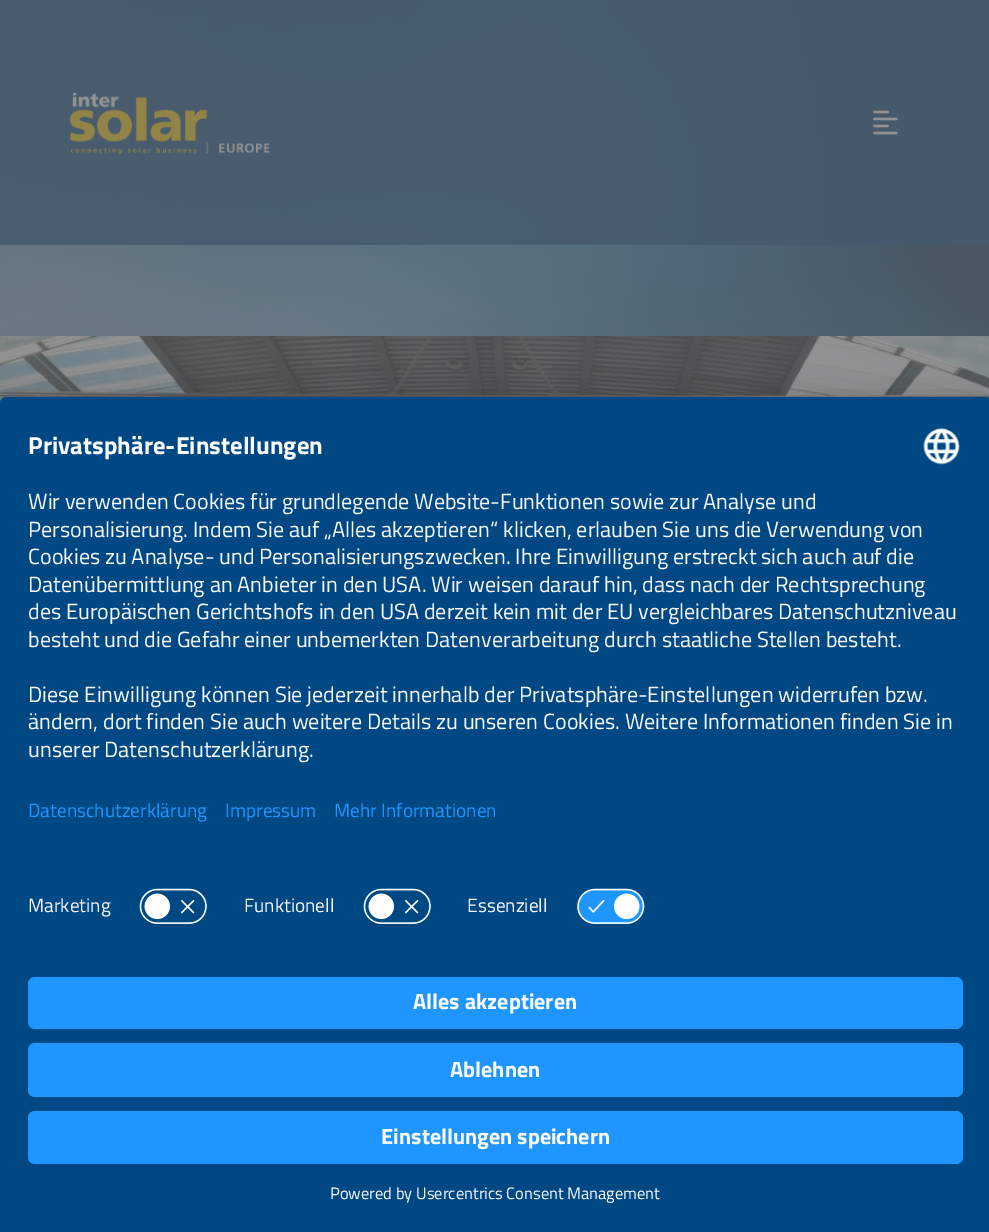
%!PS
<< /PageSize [989 1232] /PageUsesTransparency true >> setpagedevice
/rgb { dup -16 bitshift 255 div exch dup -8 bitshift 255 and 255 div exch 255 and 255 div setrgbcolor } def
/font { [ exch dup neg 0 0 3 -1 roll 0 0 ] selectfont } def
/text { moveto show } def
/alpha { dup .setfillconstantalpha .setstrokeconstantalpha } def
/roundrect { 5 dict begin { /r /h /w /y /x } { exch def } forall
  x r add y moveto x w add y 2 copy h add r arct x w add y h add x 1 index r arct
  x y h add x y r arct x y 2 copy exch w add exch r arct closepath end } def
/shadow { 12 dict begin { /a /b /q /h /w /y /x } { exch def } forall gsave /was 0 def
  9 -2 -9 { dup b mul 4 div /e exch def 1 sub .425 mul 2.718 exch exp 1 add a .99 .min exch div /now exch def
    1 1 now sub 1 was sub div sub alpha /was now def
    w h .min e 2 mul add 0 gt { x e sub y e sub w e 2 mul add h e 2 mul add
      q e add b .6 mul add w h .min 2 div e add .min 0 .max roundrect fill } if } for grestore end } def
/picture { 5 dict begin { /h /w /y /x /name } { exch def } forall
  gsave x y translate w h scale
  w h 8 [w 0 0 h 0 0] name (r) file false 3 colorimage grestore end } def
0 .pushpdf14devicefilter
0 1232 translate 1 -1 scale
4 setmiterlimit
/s1 { /TitilliumWeb-Bold 24.75 font 16#FAFAFA rgb } def
/s2 { /TitilliumWeb-Regular 22.05 font 16#FAFAFA rgb } def
/s3 { /TitilliumWeb-Regular 19.25 font 16#1F96FF rgb } def
/s4 { /TitilliumWeb-Regular 19.25 font 16#FAFAFA rgb } def
/s5 { /TitilliumWeb-Bold 22.05 font 16#FAFAFA rgb } def
/s6 { /TitilliumWeb-Regular 16.5 font 16#FAFAFA rgb } def
16#FFFFFF rgb
0 0 989 1232 rectfill
(pic1.raw) 0 0 989 336 picture
16#464646 rgb
0 371 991 770 0 70 0.12 shadow
0.88 alpha
16#465A6C rgb
0 0 989 245 rectfill
1 alpha
(pic2.raw) 70 93 200 61 picture
(pic3.raw) 873 110 25 25 picture
(pic4.raw) 0 336 989 68 picture
16#000000 rgb
0 432 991 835 7 24.5 0.3 shadow
0 406 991 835 7 23 0.22 shadow
16#004884 rgb
7 397 moveto 984 397 lineto 988 397 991 400 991 404 curveto 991 1232 lineto 0 1232 lineto 0 404 lineto 0 400 3 397 7 397 curveto closepath fill
7 397 moveto 984 397 lineto 988 397 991 400 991 404 curveto 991 956 lineto 0 956 lineto 0 404 lineto 0 400 3 397 7 397 curveto closepath fill
7 397 moveto 984 397 lineto 988 397 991 400 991 404 curveto 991 879 lineto 0 879 lineto 0 404 lineto 0 400 3 397 7 397 curveto closepath fill
s1
(Privatsphäre-Einstellungen) 28 454 text
(pic5.raw) 923 428 37 37 picture
s2
(Wir verwenden Cookies für grundlegende Website-Funktionen sowie zur Analyse und) 28 509 text
(Personalisierung. Indem Sie auf „Alles akzeptieren“ klicken, erlauben Sie uns die Verwendung von) 28 537 text
(Cookies zu Analyse- und Personalisierungszwecken. Ihre Einwilligung erstreckt sich auch auf die) 28 564 text
(Datenübermittlung an Anbieter in den USA. Wir weisen darauf hin, dass nach der Rechtsprechung) 28 592 text
(des Europäischen Gerichtshofs in den USA derzeit kein mit der EU vergleichbares Datenschutzniveau) 28 619 text
(besteht und die Gefahr einer unbemerkten Datenverarbeitung durch staatliche Stellen besteht.) 28 647 text
(Diese Einwilligung können Sie jederzeit innerhalb der Privatsphäre-Einstellungen widerrufen bzw.) 28 702 text
(ändern, dort finden Sie auch weitere Details zu unseren Cookies. Weitere Informationen finden Sie in) 28 729 text
(unserer Datenschutzerklärung.) 28 757 text
s3
(Datenschutzerklärung) 28 817 text
(Impressum) 225 817 text
(Mehr Informationen) 334 817 text
s4
(Marketing) 28 912 text
(pic6.raw) 139 888 68 36 picture
(Funktionell) 244 912 text
(pic6.raw) 363 888 68 36 picture
(Essenziell) 467 912 text
(pic7.raw) 577 888 68 36 picture
16#1F96FF rgb
28 977 935 52 7 roundrect fill
s5
(Alles akzeptieren) 413 1009 text
16#1F96FF rgb
28 1043 935 54 7 roundrect fill
s5
(Ablehnen) 450 1077 text
16#1F96FF rgb
28 1111 935 53 7 roundrect fill
s5
(Einstellungen speichern) 381 1144 text
s6
(Powered by Usercentrics Consent Management) 330 1199 text
.poppdf14devicefilter showpage
